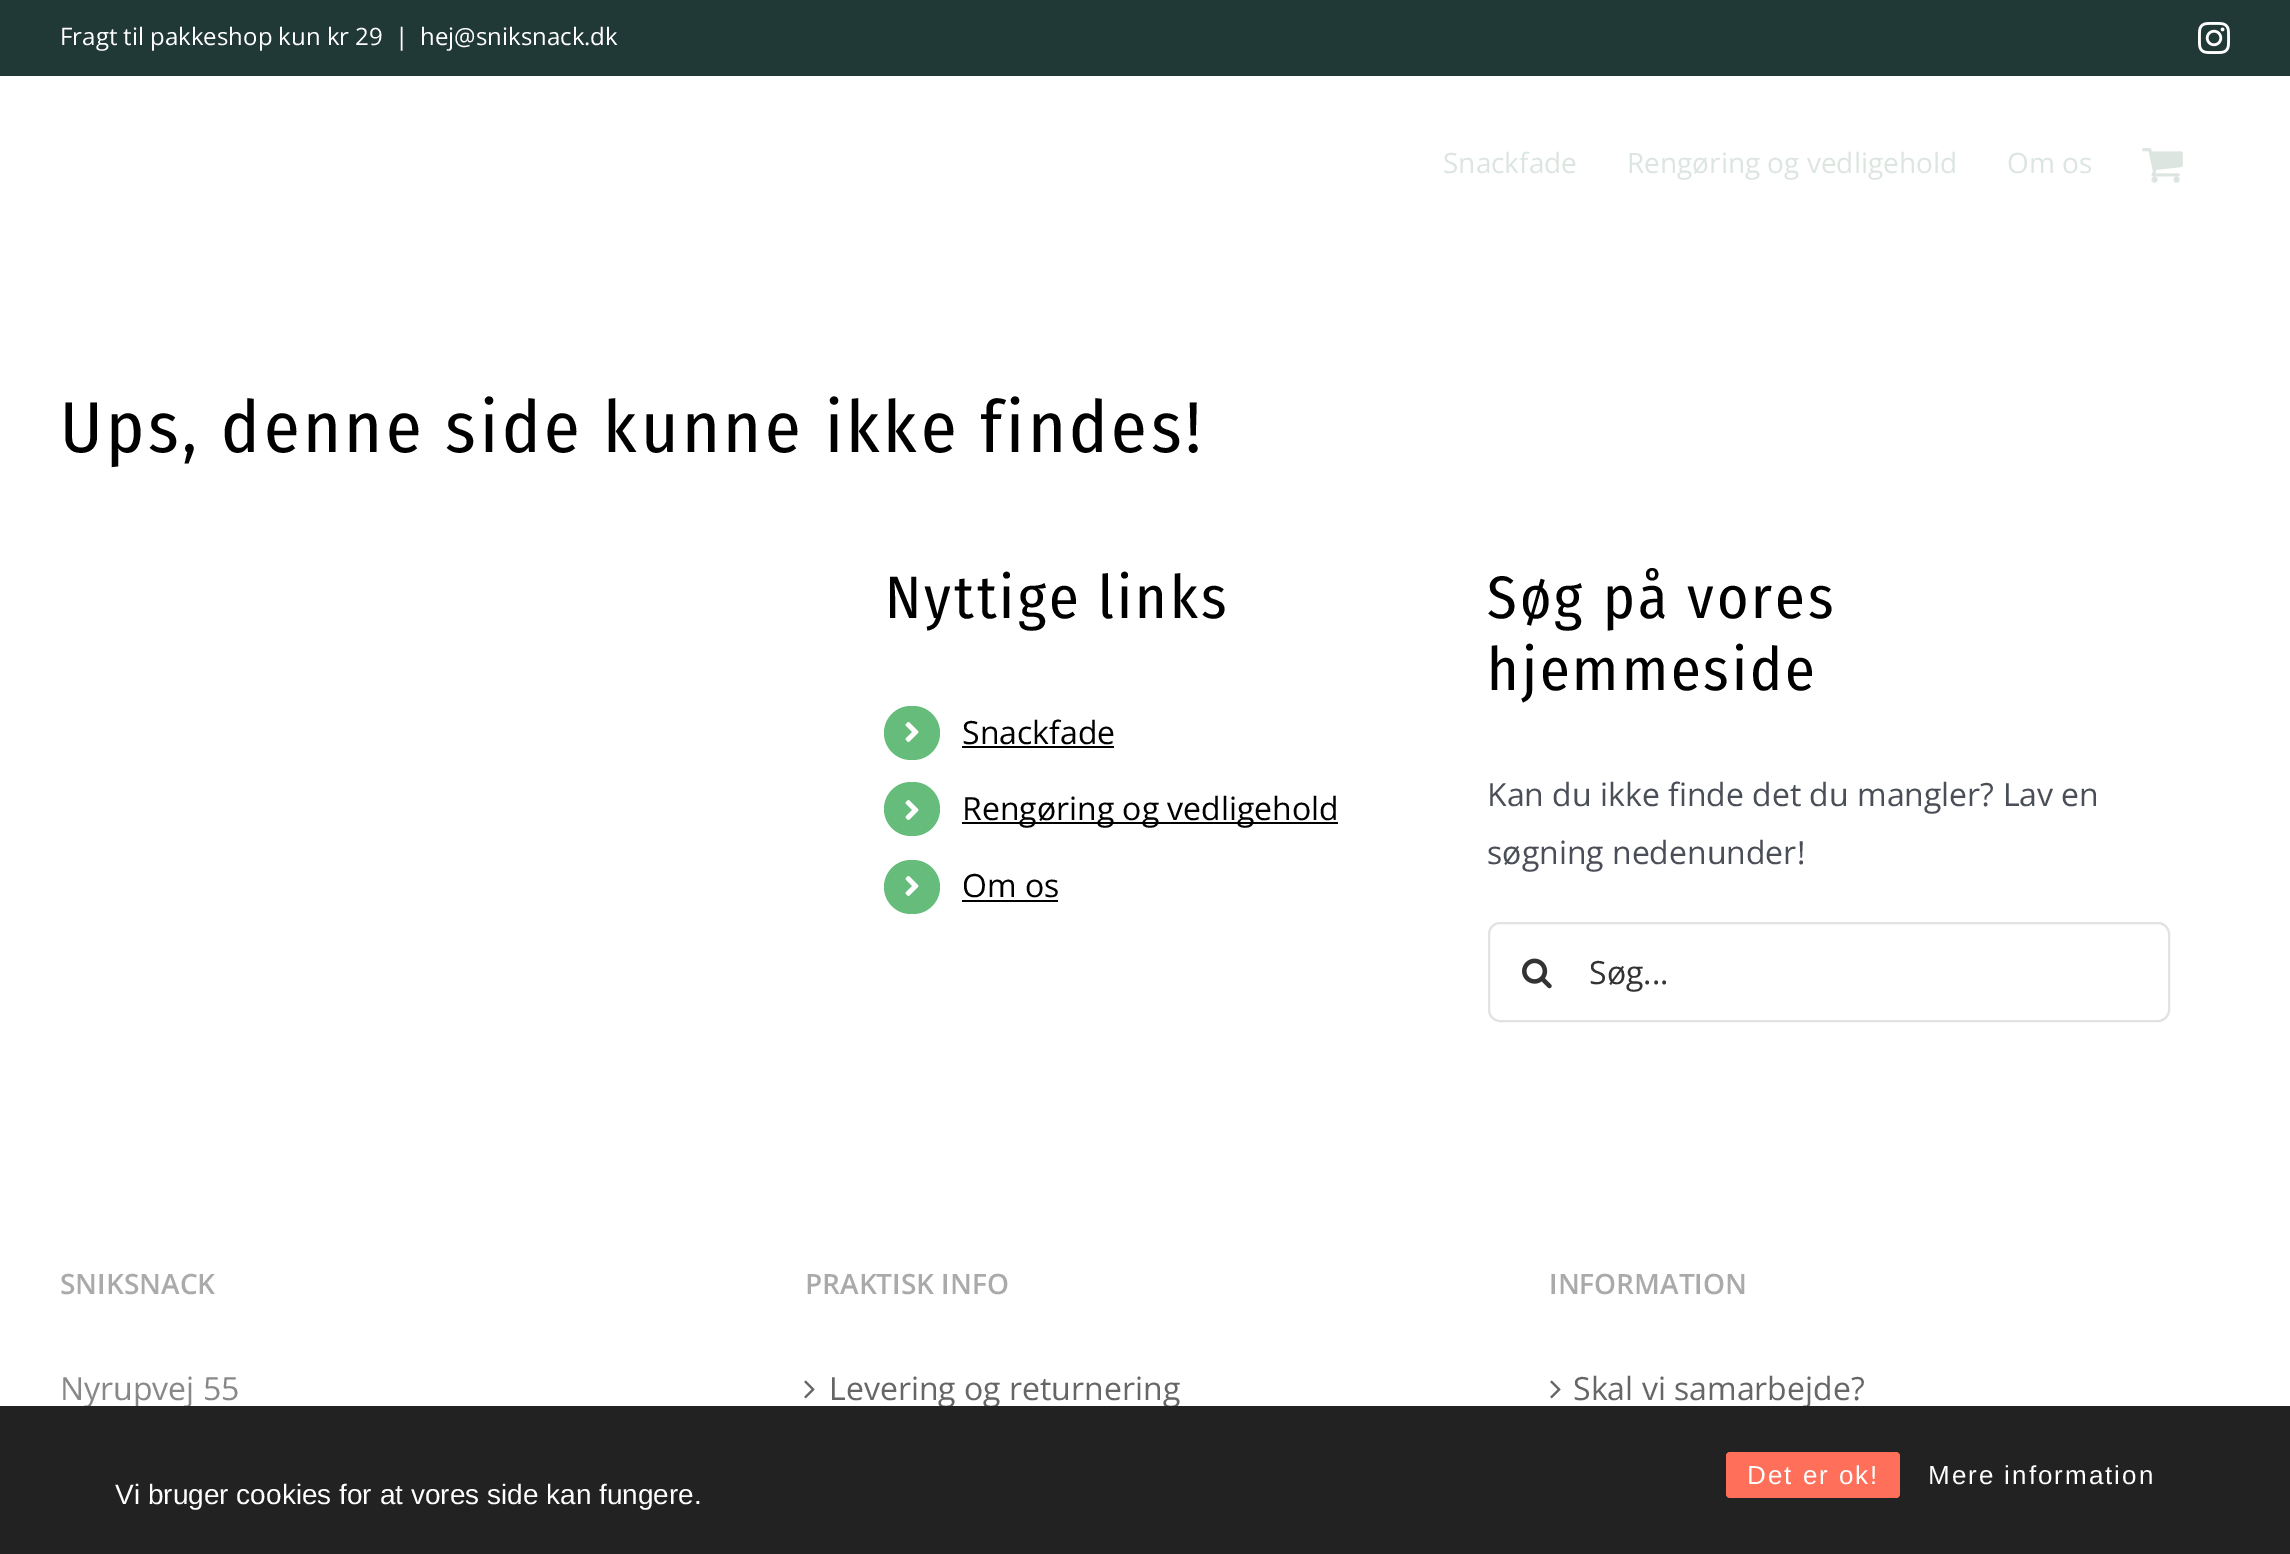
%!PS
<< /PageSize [2290 1554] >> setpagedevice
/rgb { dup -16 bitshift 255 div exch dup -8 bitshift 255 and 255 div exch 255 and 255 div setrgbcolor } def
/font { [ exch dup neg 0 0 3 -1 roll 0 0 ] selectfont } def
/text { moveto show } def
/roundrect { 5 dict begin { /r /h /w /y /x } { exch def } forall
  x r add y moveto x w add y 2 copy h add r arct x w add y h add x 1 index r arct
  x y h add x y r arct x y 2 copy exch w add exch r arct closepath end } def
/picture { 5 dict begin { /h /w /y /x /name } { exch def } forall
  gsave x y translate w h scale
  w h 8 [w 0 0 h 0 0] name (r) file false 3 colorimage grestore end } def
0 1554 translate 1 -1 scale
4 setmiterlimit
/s1 { /OpenSans-Regular 24 font 16#FFFFFF rgb } def
/s2 { /OpenSans-Regular 28 font 16#DCE5DF rgb } def
/s3 { /OpenSans-Regular 32 font 16#000000 rgb } def
/s4 { /OpenSans-Regular 32 font 16#4A4E57 rgb } def
/s5 { /OpenSans-Regular 32 font 16#333333 rgb } def
/s6 { /OpenSans-SemiBold 28 font 16#AAAAAA rgb } def
/s7 { /OpenSans-Regular 32 font 16#888888 rgb } def
/s8 { /OpenSans-Regular 32 font 16#666666 rgb } def
/s9 { /LiberationSans-Regular 28 font 16#FFFFFF rgb } def
16#FFFFFF rgb
0 0 2290 1554 rectfill
16#203836 rgb
0 0 2290 76 rectfill
s1
(Fragt til pakkeshop kun kr 29) 60 45 text
(|) 395 45 text
(hej@sniksnack.dk) 420 45 text
(pic1.raw) 2198 22 32 32 picture
s2
(Snackfade) 1443 173 text
(Rengøring og vedligehold) 1627 173 text
(Om os) 2007 173 text
(pic2.raw) 2142 148 41 35 picture
/FiraSansCondensed-Regular 72 font
16#000000 rgb
60 452 moveto 3.6 0 (Ups, denne side kunne ikke findes!) ashow
/FiraSansCondensed-Regular 60 font
885 618 moveto 3 0 (Nyttige links) ashow
16#65BC7B rgb
884 706 56 54 27 roundrect fill
(pic3.raw) 905 722 14 20 picture
s3
(Snackfade) 962 744 text
962 746 152 2 rectfill
16#65BC7B rgb
884 782 56 54 27 roundrect fill
(pic3.raw) 905 800 14 20 picture
16#000000 rgb
962 822 376 2 rectfill
(Rengøring og vedligehold) 962 820 text
16#65BC7B rgb
884 860 56 54 27 roundrect fill
(pic3.raw) 905 876 14 20 picture
s3
(Om os) 962 897 text
962 900 96 2 rectfill
/FiraSansCondensed-Regular 60 font
1487 618 moveto 3 0 (Søg på vores) ashow
1487 690 moveto 3 0 (hjemmeside) ashow
s4
(Kan du ikke finde det du mangler? Lav en) 1487 806 text
(søgning nedenunder!) 1487 864 text
16#E2E2E2 rgb
2 setlinewidth
1489 923 680 98 11 roundrect stroke
(pic4.raw) 1522 958 30 31 picture
s5
(Søg...) 1589 984 text
s6
(SNIKSNACK) 60 1294 text
s7
(Nyrupvej 55) 60 1400 text
s6
(PRAKTISK INFO) 805 1294 text
(pic5.raw) 804 1380 11 19 picture
s8
(Levering og returnering) 829 1400 text
s6
(INFORMATION) 1549 1294 text
(pic5.raw) 1550 1380 11 19 picture
s8
(Skal vi samarbejde?) 1573 1400 text
16#222222 rgb
0 1406 2290 148 rectfill
16#FF6F59 rgb
1726 1452 174 46 4 roundrect fill
/LiberationSans-Regular 26 font
16#FFFFFF rgb
1747 1484 moveto 2 0 (Det er ok!) ashow
1928 1484 moveto 2 0 (Mere information) ashow
s9
(Vi bruger cookies for at vores side kan fungere.) 115 1504 text
showpage
